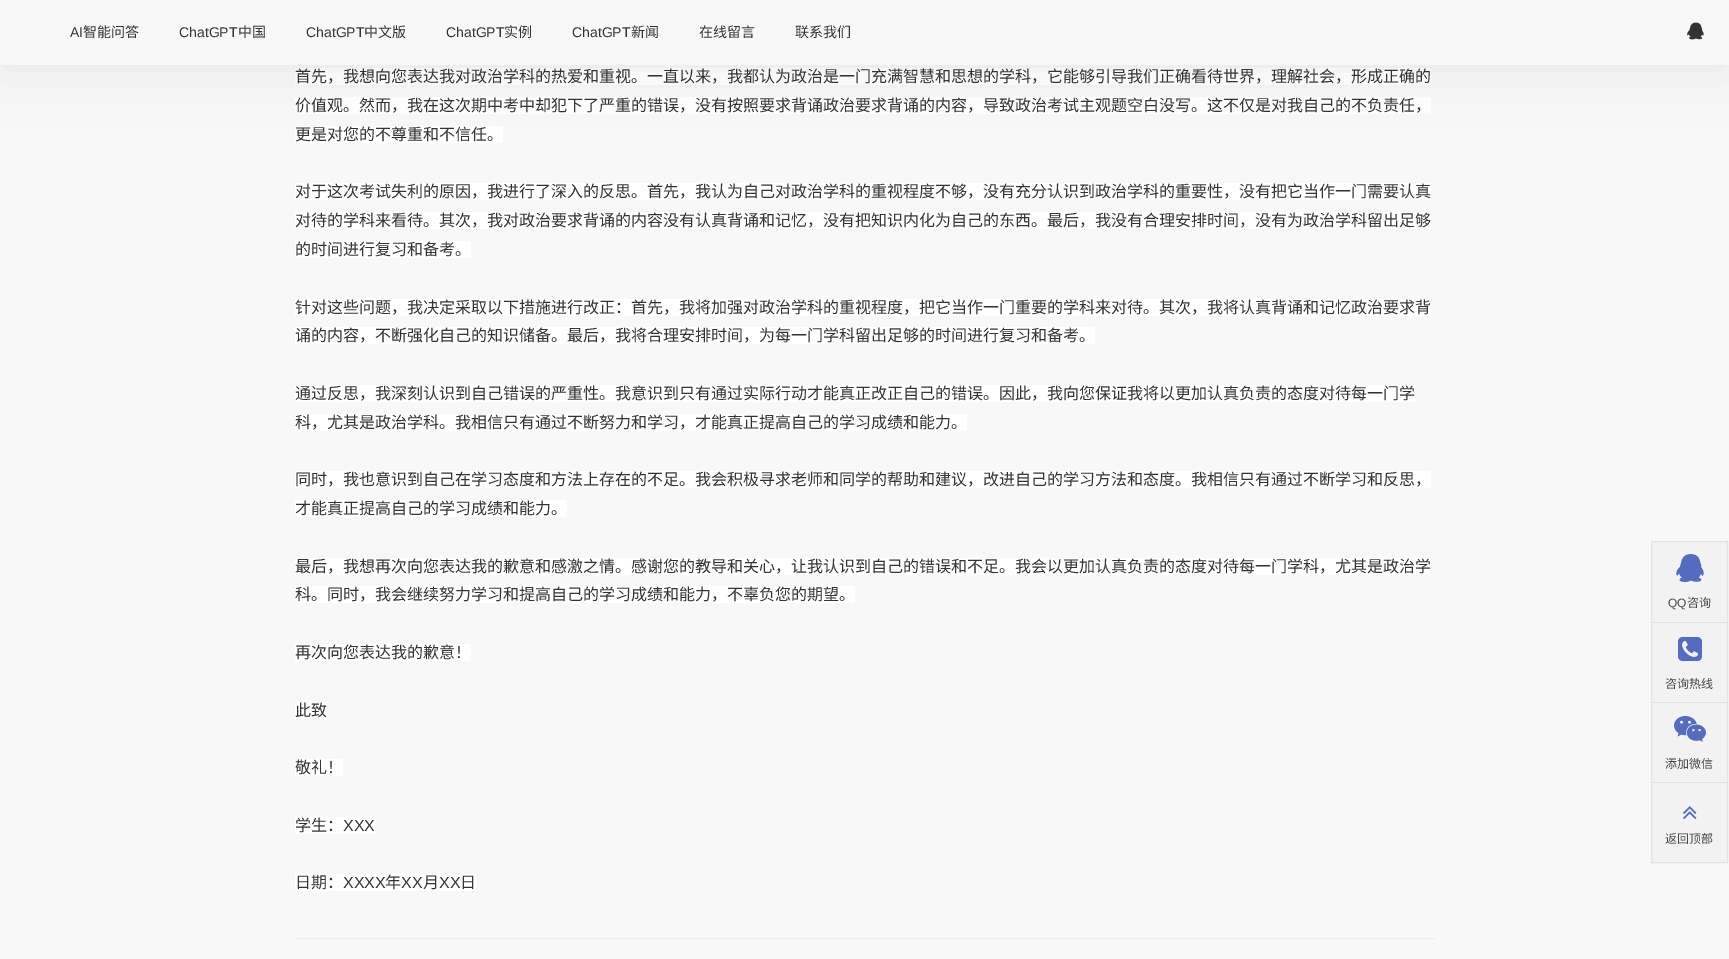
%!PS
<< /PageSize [1729 959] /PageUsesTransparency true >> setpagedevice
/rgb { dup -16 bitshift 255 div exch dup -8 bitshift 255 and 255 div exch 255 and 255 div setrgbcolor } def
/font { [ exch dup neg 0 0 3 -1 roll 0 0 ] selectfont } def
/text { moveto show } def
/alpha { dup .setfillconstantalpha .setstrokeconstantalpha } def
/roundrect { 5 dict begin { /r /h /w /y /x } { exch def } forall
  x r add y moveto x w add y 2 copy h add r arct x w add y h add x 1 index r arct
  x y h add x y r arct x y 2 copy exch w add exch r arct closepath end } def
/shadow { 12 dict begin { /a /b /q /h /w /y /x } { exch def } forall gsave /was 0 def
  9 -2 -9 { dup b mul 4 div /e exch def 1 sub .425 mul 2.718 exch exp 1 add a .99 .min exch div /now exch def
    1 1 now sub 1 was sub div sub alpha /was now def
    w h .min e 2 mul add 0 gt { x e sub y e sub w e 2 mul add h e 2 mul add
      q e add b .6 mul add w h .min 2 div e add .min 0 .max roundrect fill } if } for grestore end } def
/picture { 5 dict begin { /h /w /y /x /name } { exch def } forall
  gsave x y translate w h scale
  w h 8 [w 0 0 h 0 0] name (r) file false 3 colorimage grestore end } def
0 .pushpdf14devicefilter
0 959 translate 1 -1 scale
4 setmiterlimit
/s1 { /LiberationSans-Regular 14 font 16#333333 rgb } def
/s2 { /NotoSansCJKSC-Regular 14 font 16#333333 rgb } def
/s3 { /NotoSansCJKSC-Regular 16 font 16#333333 rgb } def
/s4 { /LiberationSans-Regular 16 font 16#333333 rgb } def
/s5 { /LiberationSans-Regular 12 font 16#474747 rgb } def
/s6 { /NotoSansCJKSC-Regular 12 font 16#474747 rgb } def
16#F8F8F8 rgb
0 0 1729 959 rectfill
16#FFFFFF rgb
295 68 1136 17 rectfill
295 97 1136 17 rectfill
295 126 208 17 rectfill
16#000000 rgb
0 0 1729 65 0 30 0.07 shadow
16#F8F8F8 rgb
0 0 1729 65 rectfill
s1
(AI) 70 37 text
s2
(智能问答) 83 37 text
s1
(ChatGPT) 179 37 text
s2
(中国) 238 37 text
s1
(ChatGPT) 306 37 text
s2
(中文版) 364 37 text
s1
(ChatGPT) 446 37 text
s2
(实例) 504 37 text
s1
(ChatGPT) 572 37 text
s2
(新闻) 631 37 text
(在线留言) 699 37 text
(联系我们) 795 37 text
(pic1.raw) 1687 22 17 18 picture
s3
(首先，我想向您表达我对政治学科的热爱和重视。一直以来，我都认为政治是一门充满智慧和思想的学科，它能够引导我们正确看待世界，理解社会，形成正确的) 295 82 text
(价值观。然而，我在这次期中考中却犯下了严重的错误，没有按照要求背诵政治要求背诵的内容，导致政治考试主观题空白没写。这不仅是对我自己的不负责任，) 295 111 text
(更是对您的不尊重和不信任。) 295 140 text
16#FFFFFF rgb
295 183 1136 17 rectfill
s3
(对于这次考试失利的原因，我进行了深入的反思。首先，我认为自己对政治学科的重视程度不够，没有充分认识到政治学科的重要性，没有把它当作一门需要认真) 295 197 text
16#FFFFFF rgb
295 212 1136 17 rectfill
s3
(对待的学科来看待。其次，我对政治要求背诵的内容没有认真背诵和记忆，没有把知识内化为自己的东西。最后，我没有合理安排时间，没有为政治学科留出足够) 295 226 text
16#FFFFFF rgb
295 241 176 17 rectfill
s3
(的时间进行复习和备考。) 295 255 text
16#FFFFFF rgb
295 299 1136 17 rectfill
s3
(针对这些问题，我决定采取以下措施进行改正：首先，我将加强对政治学科的重视程度，把它当作一门重要的学科来对待。其次，我将认真背诵和记忆政治要求背) 295 313 text
16#FFFFFF rgb
295 327 800 17 rectfill
s3
(诵的内容，不断强化自己的知识储备。最后，我将合理安排时间，为每一门学科留出足够的时间进行复习和备考。) 295 341 text
16#FFFFFF rgb
295 385 1120 17 rectfill
s3
(通过反思，我深刻认识到自己错误的严重性。我意识到只有通过实际行动才能真正改正自己的错误。因此，我向您保证我将以更加认真负责的态度对待每一门学) 295 399 text
16#FFFFFF rgb
295 414 672 17 rectfill
s3
(科，尤其是政治学科。我相信只有通过不断努力和学习，才能真正提高自己的学习成绩和能力。) 295 428 text
16#FFFFFF rgb
295 471 1136 17 rectfill
s3
(同时，我也意识到自己在学习态度和方法上存在的不足。我会积极寻求老师和同学的帮助和建议，改进自己的学习方法和态度。我相信只有通过不断学习和反思，) 295 485 text
16#FFFFFF rgb
295 500 272 17 rectfill
s3
(才能真正提高自己的学习成绩和能力。) 295 514 text
16#FFFFFF rgb
295 558 1136 17 rectfill
s3
(最后，我想再次向您表达我的歉意和感激之情。感谢您的教导和关心，让我认识到自己的错误和不足。我会以更加认真负责的态度对待每一门学科，尤其是政治学) 295 572 text
16#FFFFFF rgb
295 586 560 17 rectfill
s3
(科。同时，我会继续努力学习和提高自己的学习成绩和能力，不辜负您的期望。) 295 600 text
16#FFFFFF rgb
295 644 176 17 rectfill
s3
(再次向您表达我的歉意！) 295 658 text
16#FFFFFF rgb
295 702 32 17 rectfill
s3
(此致) 295 716 text
16#FFFFFF rgb
295 759 48 17 rectfill
s3
(敬礼！) 295 773 text
16#FFFFFF rgb
295 817 80 17 rectfill
s3
(学生：) 295 831 text
s4
(XXX) 343 831 text
16#FFFFFF rgb
295 874 181 17 rectfill
s3
(日期：) 295 888 text
s4
(XXXX) 343 888 text
s3
(年) 385 888 text
s4
(XX) 401 888 text
s3
(月) 423 888 text
s4
(XX) 439 888 text
s3
(日) 460 888 text
16#EBEBEB rgb
295 938 1140 1 rectfill
16#F2F2F2 rgb
1651.5 541.5 moveto 1727.5 541.5 lineto 1727.5 862.5 lineto 1651.5 862.5 lineto closepath gsave fill grestore
16#E2E2E2 rgb
stroke
(pic2.raw) 1676 554 28 28 picture
s5
(QQ) 1668 607 text
s6
(咨询) 1687 607 text
16#E2E2E2 rgb
1652 622 75 1 rectfill
(pic3.raw) 1678 637 24 24 picture
s6
(咨询热线) 1665 688 text
16#E2E2E2 rgb
1652 702 75 1 rectfill
(pic4.raw) 1674 716 32 26 picture
s6
(添加微信) 1665 768 text
16#E2E2E2 rgb
1652 782 75 1 rectfill
(pic5.raw) 1683 806 14 14 picture
s6
(返回顶部) 1665 843 text
.poppdf14devicefilter showpage
